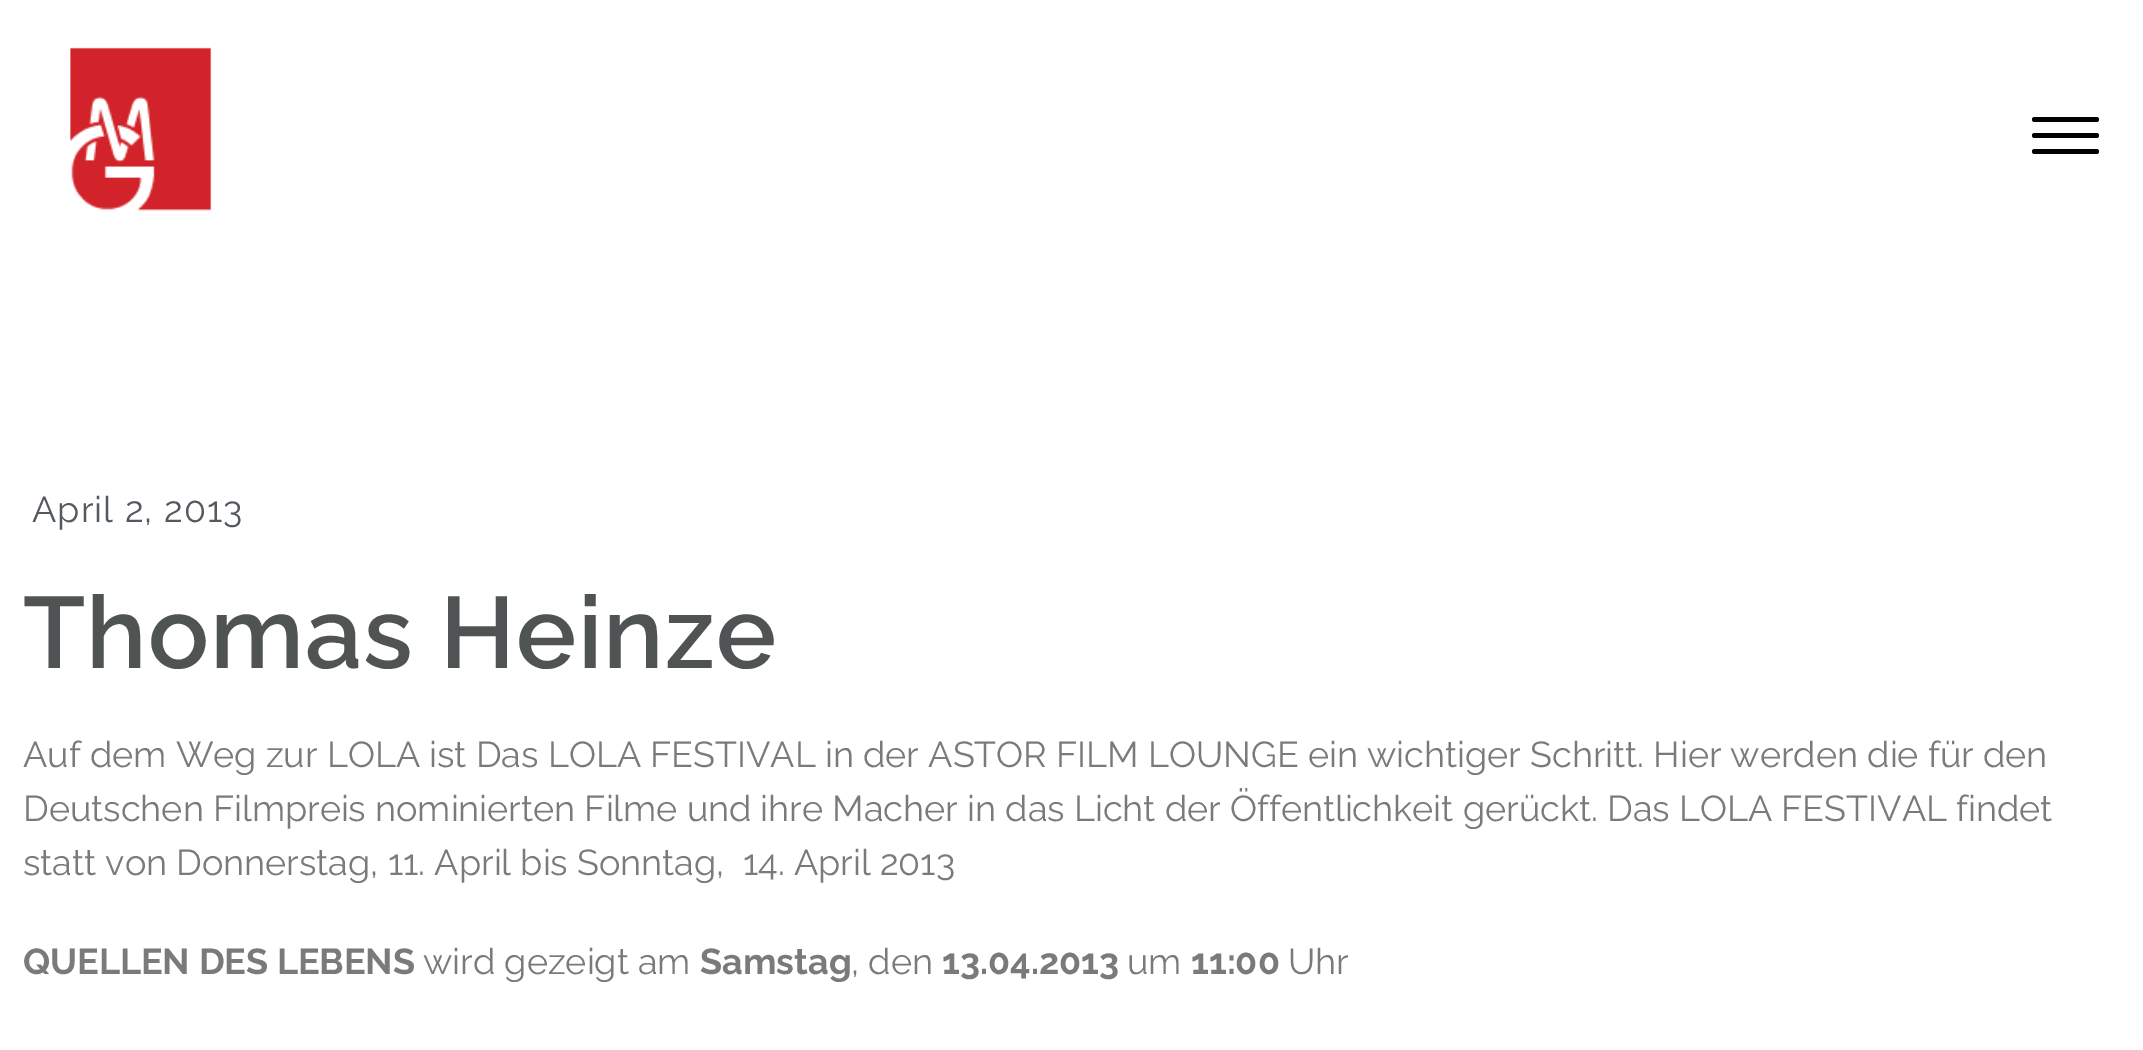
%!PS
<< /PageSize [2143 1050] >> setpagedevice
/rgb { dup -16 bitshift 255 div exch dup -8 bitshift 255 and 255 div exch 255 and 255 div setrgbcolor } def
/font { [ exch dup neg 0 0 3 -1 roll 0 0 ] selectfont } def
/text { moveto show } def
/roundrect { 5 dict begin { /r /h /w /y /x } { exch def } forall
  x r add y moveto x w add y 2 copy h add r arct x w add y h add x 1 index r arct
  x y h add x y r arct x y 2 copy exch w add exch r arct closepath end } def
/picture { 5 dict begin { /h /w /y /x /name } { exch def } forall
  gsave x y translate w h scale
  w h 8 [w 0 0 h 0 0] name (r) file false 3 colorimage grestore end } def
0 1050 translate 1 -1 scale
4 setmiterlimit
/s1 { /Raleway-Thin 36 font 16#7A7A7A rgb } def
/s2 { /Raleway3-Thin 36 font 16#7A7A7A rgb } def
16#FFFFFF rgb
0 0 2143 1050 rectfill
(pic1.raw) 70 47 142 164 picture
16#000000 rgb
2032 149 67 5 2.5 roundrect fill
2032 117 67 5 2.5 roundrect fill
2032 133 67 5 2.5 roundrect fill
/Raleway-Thin 36 font
16#54595F rgb
32 522 moveto 1.1 0 (April 2, 2013) ashow
/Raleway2-Thin 101.25 font
16#4F5354 rgb
23 668 moveto 1.1 0 (Thomas Heinze) ashow
s1
(Auf dem Weg zur LOLA ist Das LOLA FESTIVAL in der ASTOR FILM LOUNGE ein wichtiger Schritt. Hier werden die für den) 23 767 text
(Deutschen Filmpreis nominierten Filme und ihre Macher in das Licht der Öffentlichkeit gerückt. Das LOLA FESTIVAL findet) 23 821 text
(statt von Donnerstag, 11. April bis Sonntag,  14. April 2013) 23 875 text
s2
(QUELLEN DES LEBENS) 23 974 text
s1
(wird gezeigt am) 423 974 text
s2
(Samstag) 700 974 text
s1
(, den) 851 974 text
s2
(13.04.2013) 942 974 text
s1
(um) 1127 974 text
s2
(11:00) 1191 974 text
s1
(Uhr) 1288 974 text
showpage
